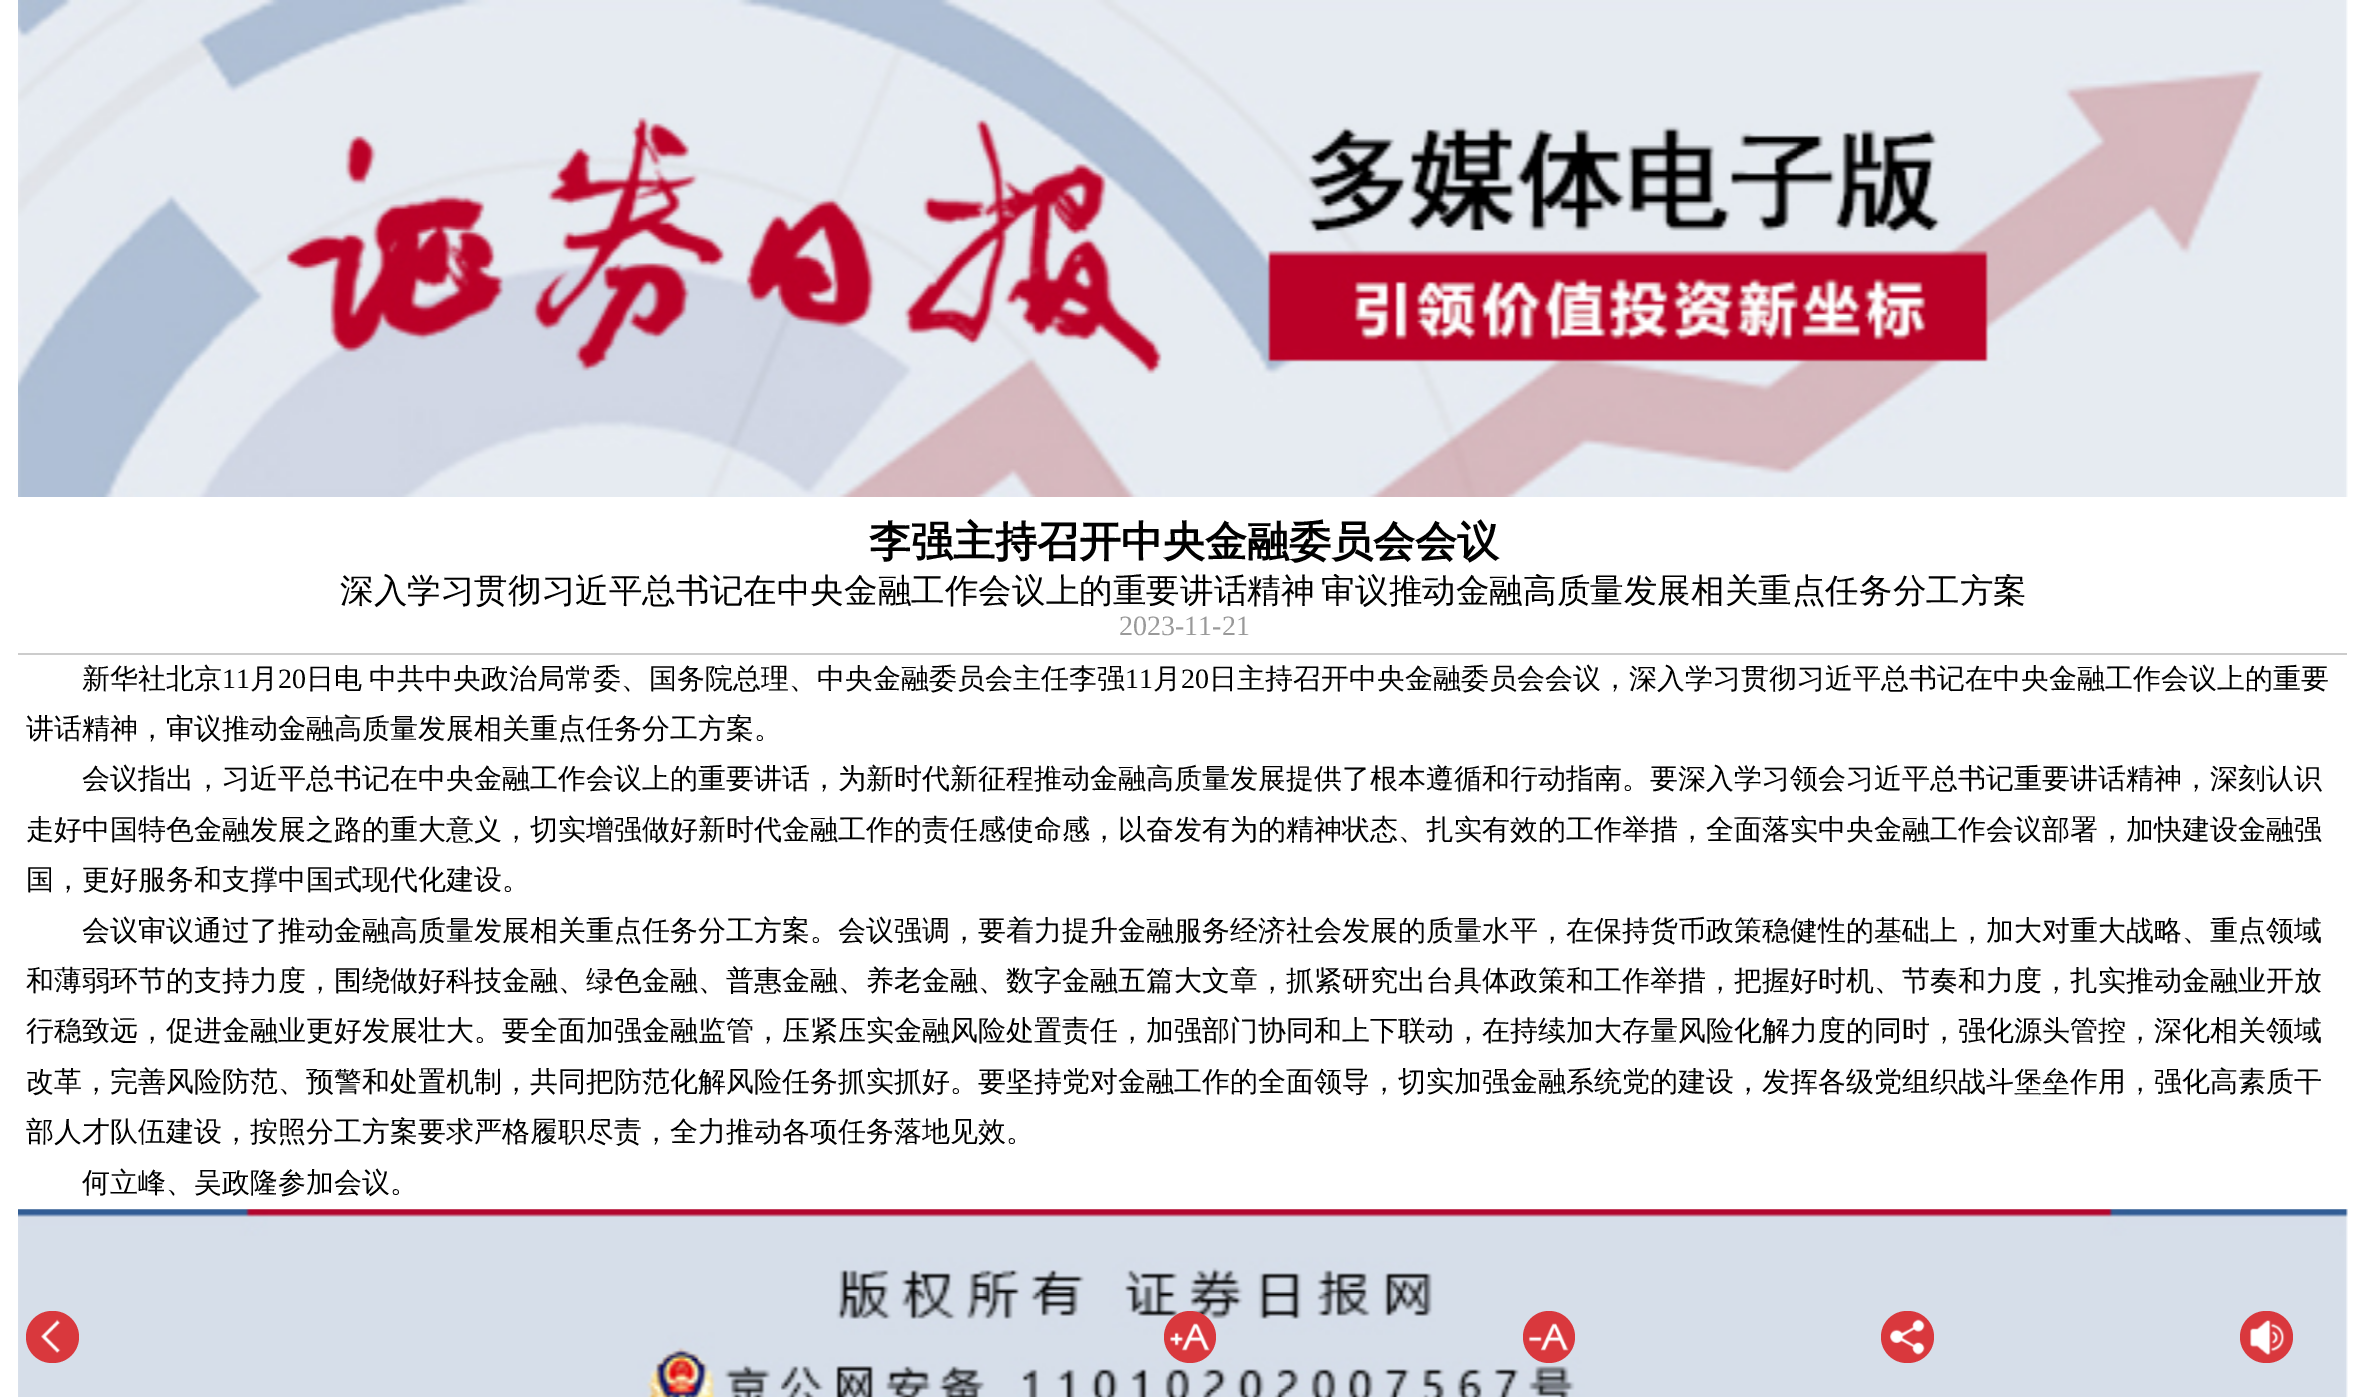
%!PS
<< /PageSize [2364 1397] >> setpagedevice
/rgb { dup -16 bitshift 255 div exch dup -8 bitshift 255 and 255 div exch 255 and 255 div setrgbcolor } def
/font { [ exch dup neg 0 0 3 -1 roll 0 0 ] selectfont } def
/text { moveto show } def
/circle { newpath 0 360 arc closepath } def
/roundrect { 5 dict begin { /r /h /w /y /x } { exch def } forall
  x r add y moveto x w add y 2 copy h add r arct x w add y h add x 1 index r arct
  x y h add x y r arct x y 2 copy exch w add exch r arct closepath end } def
/picture { 5 dict begin { /h /w /y /x /name } { exch def } forall
  gsave x y translate w h scale
  w h 8 [w 0 0 h 0 0] name (r) file false 3 colorimage grestore end } def
0 1397 translate 1 -1 scale
4 setmiterlimit
/s1 { /WenQuanYiZenHei-Bold 42 font 16#000000 rgb } def
/s2 { /LiberationSerif-Regular 28 font 16#999999 rgb } def
/s3 { /WenQuanYiZenHei-Medium 28 font 16#000000 rgb } def
/s4 { /LiberationSerif-Regular 28 font 16#000000 rgb } def
16#FFFFFF rgb
0 0 2364 1397 rectfill
(pic1.raw) 18 0 2330 497 picture
16#CCCCCC rgb
18 653 2329 2 rectfill
s1
(李强主持召开中央金融委员会会议) 869 556 text
gsave
18 574 2329 35 rectclip
/WenQuanYiZenHei-Medium 33.6 font
340 602 moveto -3 0 32 (深入学习贯彻习近平总书记在中央金融工作会议上的重要讲话精神 审议推动金融高质量发展相关重点任务分工方案) widthshow
grestore
s2
(2023-11-21) 1119 635 text
s3
(新华社北京) 82 688 text
s4
(11) 222 688 text
s3
(月) 250 688 text
s4
(20) 278 688 text
s3
(日电) 306 688 text
(中共中央政治局常委、国务院总理、中央金融委员会主任李强) 369 688 text
s4
(11) 1125 688 text
s3
(月) 1153 688 text
s4
(20) 1181 688 text
s3
(日主持召开中央金融委员会会议，深入学习贯彻习近平总书记在中央金融工作会议上的重要) 1209 688 text
(讲话精神，审议推动金融高质量发展相关重点任务分工方案。) 26 738 text
(会议指出，习近平总书记在中央金融工作会议上的重要讲话，为新时代新征程推动金融高质量发展提供了根本遵循和行动指南。要深入学习领会习近平总书记重要讲话精神，深刻认识) 82 788 text
(走好中国特色金融发展之路的重大意义，切实增强做好新时代金融工作的责任感使命感，以奋发有为的精神状态、扎实有效的工作举措，全面落实中央金融工作会议部署，加快建设金融强) 26 839 text
(国，更好服务和支撑中国式现代化建设。) 26 889 text
(会议审议通过了推动金融高质量发展相关重点任务分工方案。会议强调，要着力提升金融服务经济社会发展的质量水平，在保持货币政策稳健性的基础上，加大对重大战略、重点领域) 82 940 text
(和薄弱环节的支持力度，围绕做好科技金融、绿色金融、普惠金融、养老金融、数字金融五篇大文章，抓紧研究出台具体政策和工作举措，把握好时机、节奏和力度，扎实推动金融业开放) 26 990 text
(行稳致远，促进金融业更好发展壮大。要全面加强金融监管，压紧压实金融风险处置责任，加强部门协同和上下联动，在持续加大存量风险化解力度的同时，强化源头管控，深化相关领域) 26 1040 text
(改革，完善风险防范、预警和处置机制，共同把防范化解风险任务抓实抓好。要坚持党对金融工作的全面领导，切实加强金融系统党的建设，发挥各级党组织战斗堡垒作用，强化高素质干) 26 1091 text
(部人才队伍建设，按照分工方案要求严格履职尽责，全力推动各项任务落地见效。) 26 1141 text
(何立峰、吴政隆参加会议。) 82 1192 text
(pic2.raw) 18 1209 2330 188 picture
16#D9383D rgb
26 1311 53 52 26 roundrect fill
(pic3.raw) 41 1319 20 34 picture
1190 1337 26 circle fill
(pic4.raw) 1170 1323 41 28 picture
1549 1337 26 circle fill
(pic5.raw) 1528 1323 41 28 picture
1881 1311 53 52 26 roundrect fill
(pic6.raw) 1890 1319 35 36 picture
2240 1311 53 52 26 roundrect fill
(pic7.raw) 2250 1320 35 35 picture
showpage
